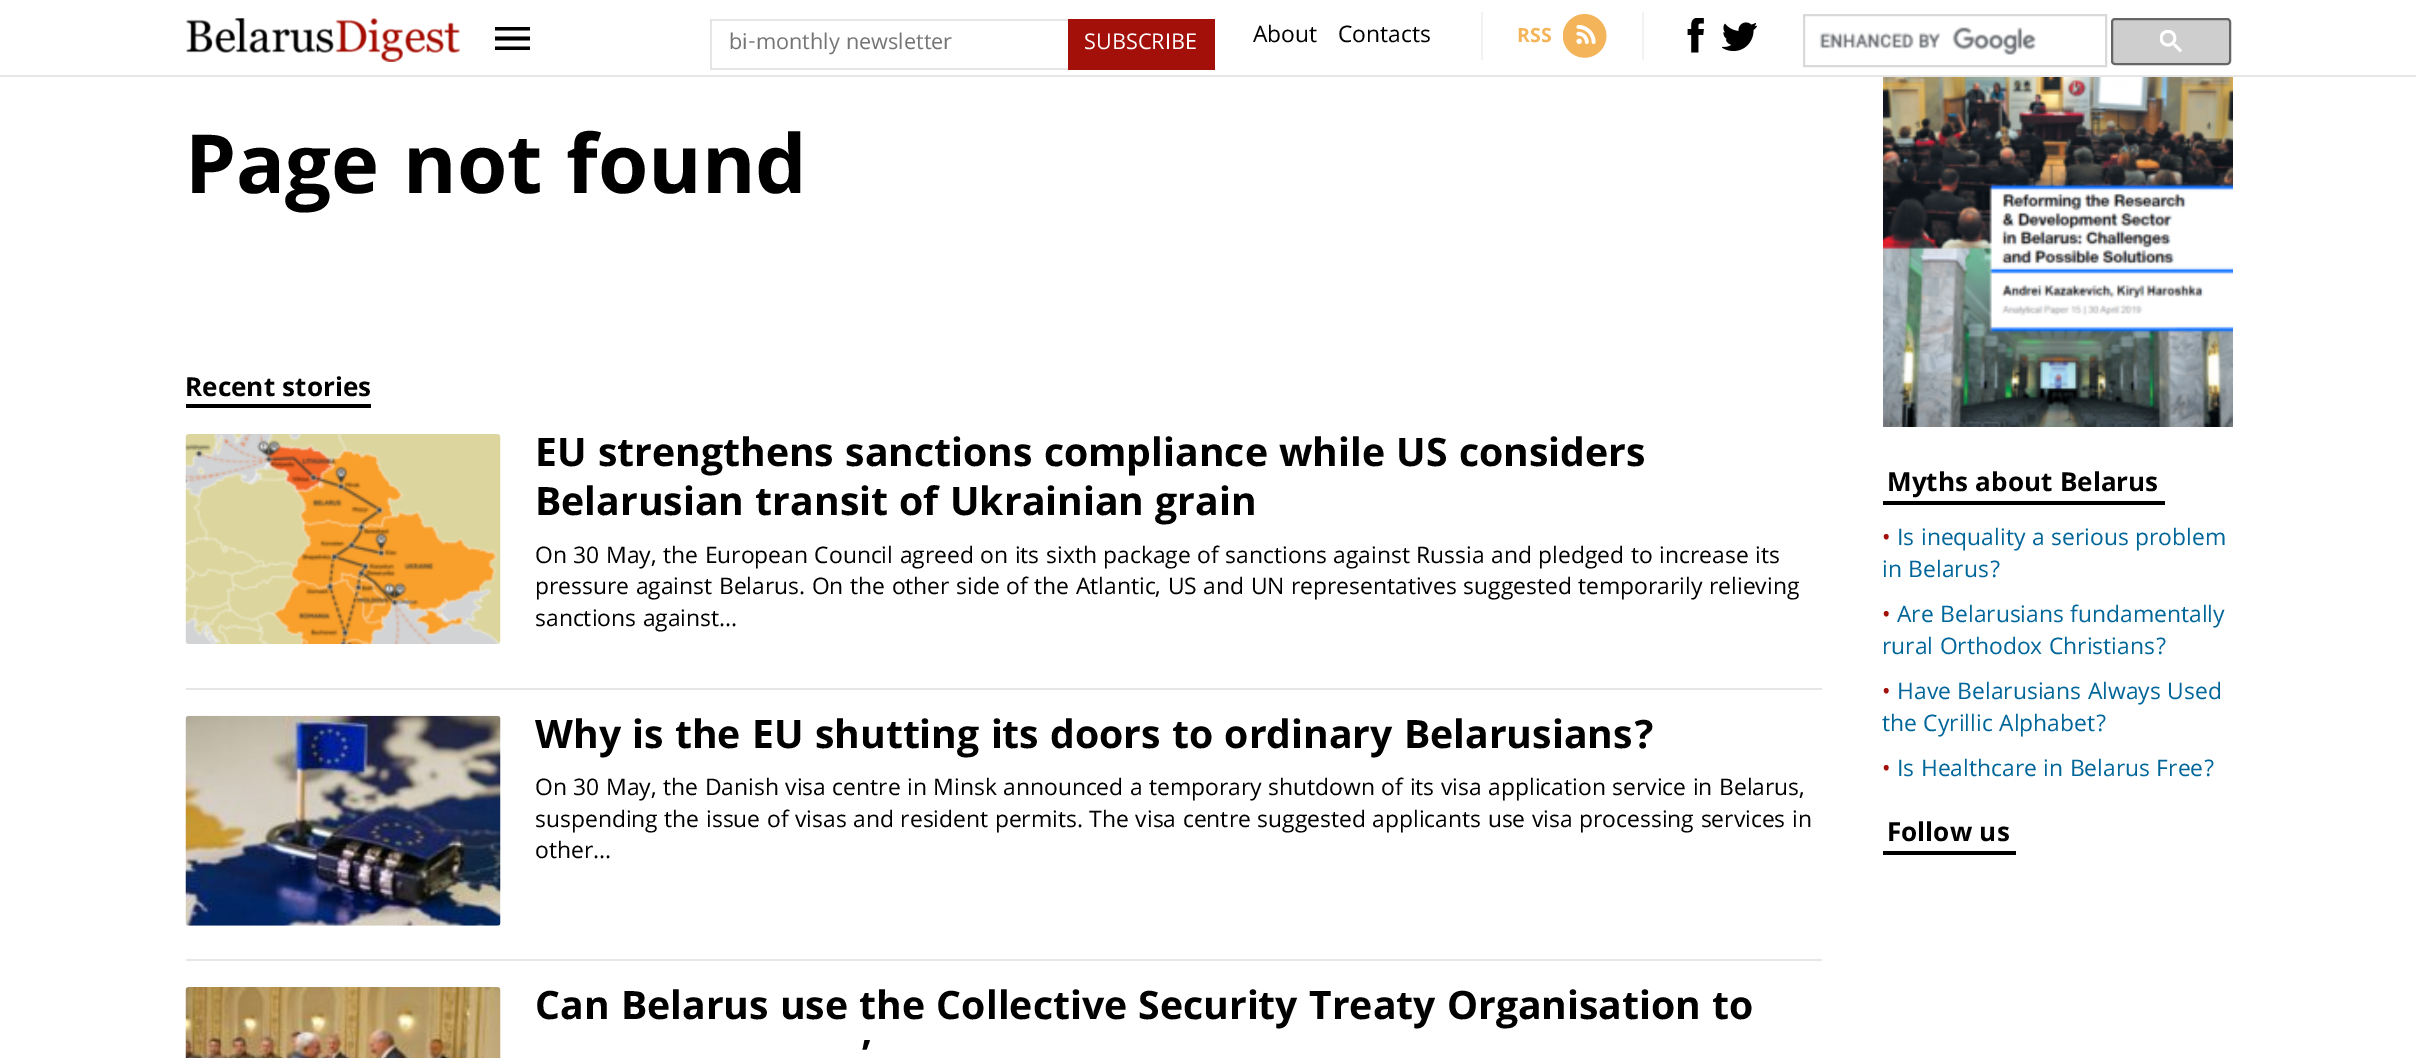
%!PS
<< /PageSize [2416 1058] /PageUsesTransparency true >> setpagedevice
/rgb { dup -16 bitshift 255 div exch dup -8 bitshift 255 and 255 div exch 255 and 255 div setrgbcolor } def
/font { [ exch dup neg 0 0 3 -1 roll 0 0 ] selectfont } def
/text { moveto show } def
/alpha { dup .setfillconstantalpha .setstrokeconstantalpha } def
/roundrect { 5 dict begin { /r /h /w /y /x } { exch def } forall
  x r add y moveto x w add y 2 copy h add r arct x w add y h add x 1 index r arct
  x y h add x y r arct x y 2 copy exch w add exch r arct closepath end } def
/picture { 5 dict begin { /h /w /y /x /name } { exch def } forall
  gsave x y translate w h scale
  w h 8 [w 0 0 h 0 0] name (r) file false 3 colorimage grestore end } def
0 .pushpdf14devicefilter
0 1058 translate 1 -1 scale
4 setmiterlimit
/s1 { /Khula-Regular 23.25 font 16#757575 rgb } def
/s2 { /Khula-Regular 23.25 font 16#FFFFFF rgb } def
/s3 { /Khula-Regular 24.5 font 16#000000 rgb } def
/s4 { /Khula-Bold 21 font 16#F4B459 rgb } def
/s5 { /Khula-Bold 87.5 font 16#000000 rgb } def
/s6 { /Khula-Bold 28 font 16#000000 rgb } def
/s7 { /Khula-Bold 42 font 16#000000 rgb } def
/s8 { /Khula-Regular 24.5 font 16#A3100A rgb } def
/s9 { /Khula-Regular 24.5 font 16#006699 rgb } def
16#FFFFFF rgb
0 0 2416 1058 rectfill
16#E6E6E6 rgb
0 75 2416 2 rectfill
(pic1.raw) 185 18 275 44 picture
16#000000 rgb
495 50 moveto 530 50 lineto 530 46.5 lineto 495 46.5 lineto closepath 495 40.5 moveto 530 40.5 lineto 530 36.5 lineto 495 36.5 lineto closepath 495 27 moveto 495 30.5 lineto 530 30.5 lineto 530 27 lineto closepath fill
16#E6E6E6 rgb
710 19 moveto 1068 19 lineto 1068 21 lineto 712 21 lineto closepath fill
1068 70 moveto 710 70 lineto 712 68 lineto 1068 68 lineto closepath fill
0.1 alpha
16#000000 rgb
710 70 moveto 710 19 lineto 712 21 lineto 712 68 lineto closepath fill
1 alpha
s1
(bi-monthly newsletter) 729 49 text
16#A3100A rgb
1068 19 147 51 rectfill
s2
(SUBSCRIBE) 1084 49 text
16#F2F2F2 rgb
1481 12 2 48 rectfill
s3
(About) 1253 42 text
(Contacts) 1338 42 text
16#F2F2F2 rgb
1642 12 2 48 rectfill
s4
(RSS) 1517 42 text
(pic2.raw) 1563 14 44 44 picture
(pic3.raw) 1687 18 17 35 picture
(pic4.raw) 1722 22 35 30 picture
16#D9D9D9 rgb
2 setlinewidth
1804 15 302 51 rectstroke
(pic5.raw) 1819 27 217 28 picture
16#CECECE rgb
2112 19 118 45 3 roundrect gsave fill grestore
16#666666 rgb
stroke
(pic6.raw) 2160 30 22 23 picture
s5
(Page not found) 185 193 text
186 404 185 4 rectfill
s6
(Recent stories) 185 396 text
16#E6E6E6 rgb
186 688 1636 2 rectfill
(pic7.raw) 185 434 316 210 picture
s7
(EU strengthens sanctions compliance while US considers) 535 466 text
(Belarusian transit of Ukrainian grain) 535 515 text
s3
(On 30 May, the European Council agreed on its sixth package of sanctions against Russia and pledged to increase its) 535 563 text
(pressure against Belarus. On the other side of the Atlantic, US and UN representatives suggested temporarily relieving) 535 594 text
(sanctions against...) 535 626 text
16#E6E6E6 rgb
186 959 1636 2 rectfill
(pic8.raw) 185 715 316 211 picture
s7
(Why is the EU shutting its doors to ordinary Belarusians?) 535 748 text
s3
(On 30 May, the Danish visa centre in Minsk announced a temporary shutdown of its visa application service in Belarus,) 535 795 text
(suspending the issue of visas and resident permits. The visa centre suggested applicants use visa processing services in) 535 827 text
(other...) 535 858 text
(pic9.raw) 185 987 316 71 picture
s7
(Can Belarus use the Collective Security Treaty Organisation to) 535 1019 text
(’) 859 1068 text
(pic10.raw) 1883 77 350 350 picture
1883 501 282 4 rectfill
s6
(Myths about Belarus) 1887 491 text
s8
(•) 1882 545 text
s9
(Is inequality a serious problem) 1897 545 text
(in Belarus?) 1882 577 text
s8
(•) 1882 622 text
s9
(Are Belarusians fundamentally) 1897 622 text
(rural Orthodox Christians?) 1882 654 text
s8
(•) 1882 699 text
s9
(Have Belarusians Always Used) 1897 699 text
(the Cyrillic Alphabet?) 1882 731 text
s8
(•) 1882 776 text
s9
(Is Healthcare in Belarus Free?) 1897 776 text
16#000000 rgb
1883 851 133 4 rectfill
s6
(Follow us) 1887 841 text
.poppdf14devicefilter showpage
